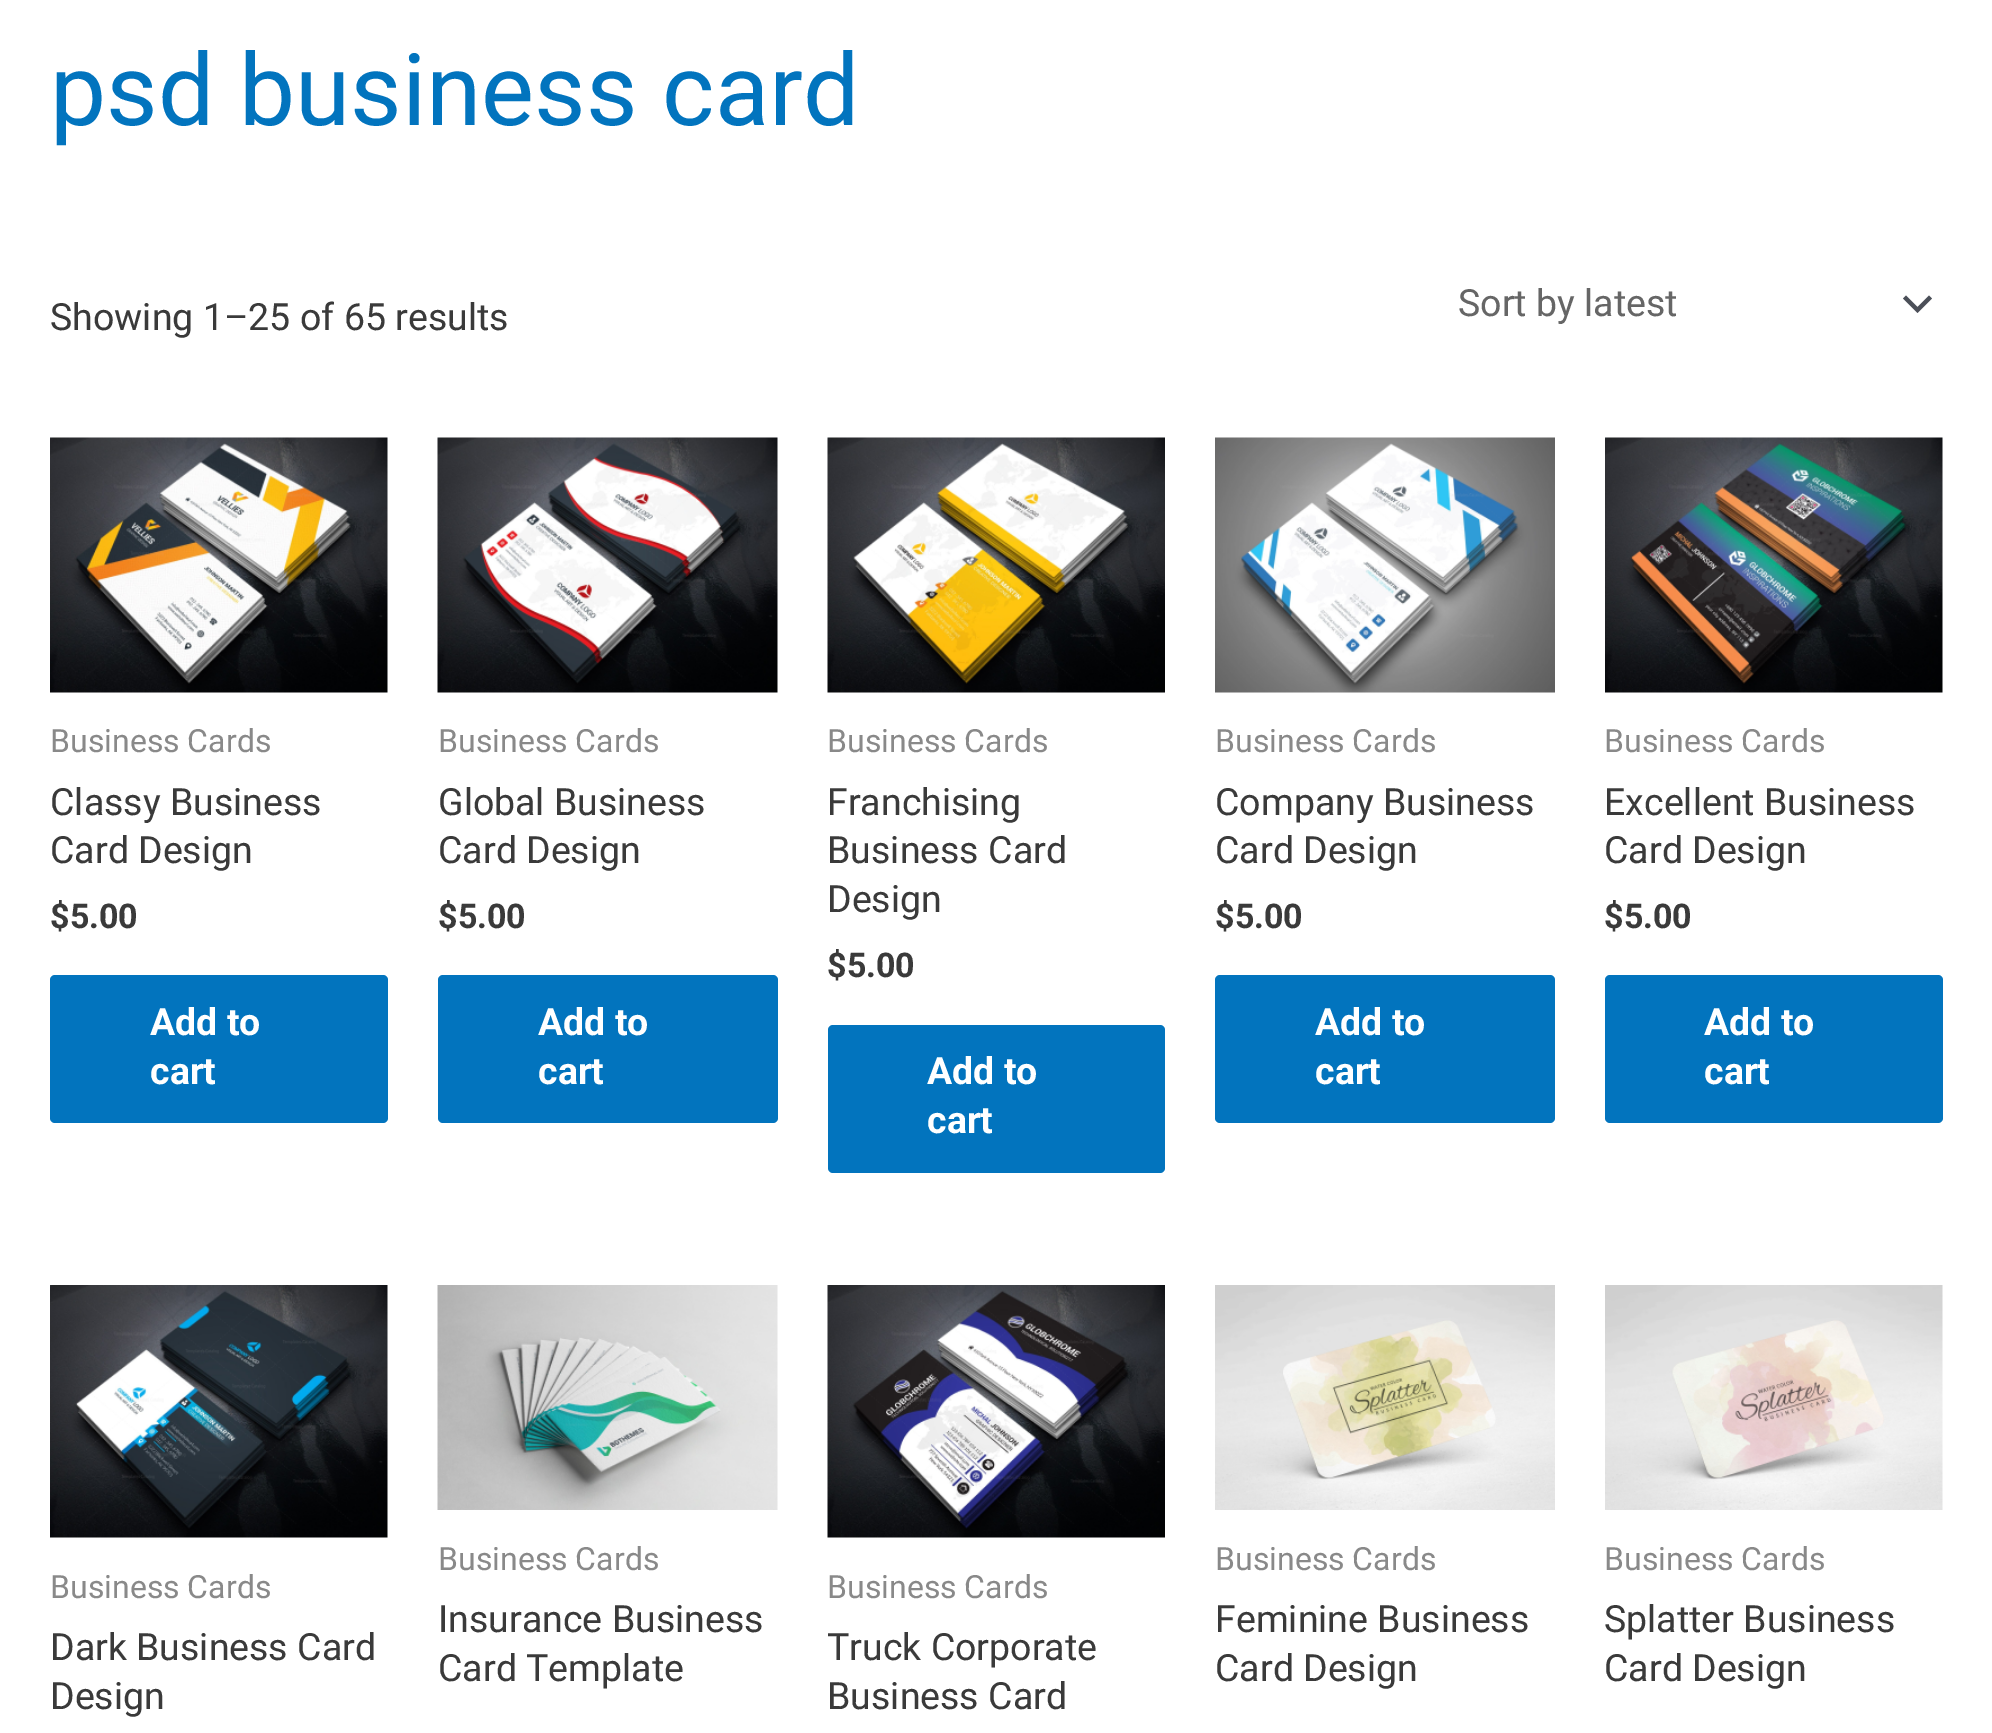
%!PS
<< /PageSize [1992 1733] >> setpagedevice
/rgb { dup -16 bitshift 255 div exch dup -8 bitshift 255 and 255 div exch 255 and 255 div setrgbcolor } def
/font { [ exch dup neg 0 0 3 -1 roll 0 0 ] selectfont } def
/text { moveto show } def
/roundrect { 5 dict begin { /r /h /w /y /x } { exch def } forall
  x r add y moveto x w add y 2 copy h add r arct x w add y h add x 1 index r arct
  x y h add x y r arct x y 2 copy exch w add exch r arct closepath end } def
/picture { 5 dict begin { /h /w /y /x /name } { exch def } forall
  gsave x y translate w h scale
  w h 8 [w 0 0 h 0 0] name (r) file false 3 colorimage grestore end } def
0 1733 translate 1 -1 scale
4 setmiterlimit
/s1 { /Roboto-Regular 100 font 16#0274BE rgb } def
/s2 { /Roboto-Regular 37.5 font 16#3A3A3A rgb } def
/s3 { /Roboto-Regular 37.5 font 16#666666 rgb } def
/s4 { /Roboto-Regular 32 font 16#898989 rgb } def
/s5 { /Roboto-Bold 34 font 16#3A3A3A rgb } def
/s6 { /Roboto-Bold 37.5 font 16#FFFFFF rgb } def
16#FFFFFF rgb
0 0 1992 1733 rectfill
s1
(psd business card) 50 125 text
s2
(Showing 1–25 of 65 results) 50 330 text
16#4B4F58 rgb
1903 298.5 moveto 1917.5 313 lineto 1932 298.5 lineto 1929 295.5 lineto 1917.5 307 lineto 1906 295.5 lineto closepath fill
s3
(Sort by latest) 1458 316 text
(pic1.raw) 50 437 338 256 picture
s4
(Business Cards) 50 752 text
s2
(Classy Business) 50 815 text
(Card Design) 50 863 text
s5
($5.00) 50 928 text
16#0274BE rgb
50 975 338 148 5 roundrect fill
s6
(Add to) 150 1035 text
(cart) 150 1084 text
(pic2.raw) 437 437 341 256 picture
s4
(Business Cards) 438 752 text
s2
(Global Business) 438 815 text
(Card Design) 438 863 text
s5
($5.00) 438 928 text
16#0274BE rgb
438 975 340 148 5 roundrect fill
s6
(Add to) 538 1035 text
(cart) 538 1084 text
(pic3.raw) 827 437 338 256 picture
s4
(Business Cards) 827 752 text
s2
(Franchising) 827 815 text
(Business Card) 827 863 text
(Design) 827 912 text
s5
($5.00) 827 977 text
16#0274BE rgb
828 1025 337 148 5 roundrect fill
s6
(Add to) 927 1084 text
(cart) 927 1133 text
(pic4.raw) 1215 437 340 256 picture
s4
(Business Cards) 1215 752 text
s2
(Company Business) 1215 815 text
(Card Design) 1215 863 text
s5
($5.00) 1215 928 text
16#0274BE rgb
1215 975 340 148 5 roundrect fill
s6
(Add to) 1315 1035 text
(cart) 1315 1084 text
(pic5.raw) 1605 437 338 256 picture
s4
(Business Cards) 1604 752 text
s2
(Excellent Business) 1604 815 text
(Card Design) 1604 863 text
s5
($5.00) 1604 928 text
16#0274BE rgb
1605 975 338 148 5 roundrect fill
s6
(Add to) 1704 1035 text
(cart) 1704 1084 text
(pic6.raw) 50 1285 338 253 picture
s4
(Business Cards) 50 1598 text
s2
(Dark Business Card) 50 1660 text
(Design) 50 1709 text
(pic7.raw) 437 1285 341 225 picture
s4
(Business Cards) 438 1570 text
s2
(Insurance Business) 438 1632 text
(Card Template) 438 1681 text
(pic8.raw) 827 1285 338 253 picture
s4
(Business Cards) 827 1598 text
s2
(Truck Corporate) 827 1660 text
(Business Card) 827 1709 text
(pic9.raw) 1215 1285 340 225 picture
s4
(Business Cards) 1215 1570 text
s2
(Feminine Business) 1215 1632 text
(Card Design) 1215 1681 text
(pic10.raw) 1605 1285 338 225 picture
s4
(Business Cards) 1604 1570 text
s2
(Splatter Business) 1604 1632 text
(Card Design) 1604 1681 text
showpage
